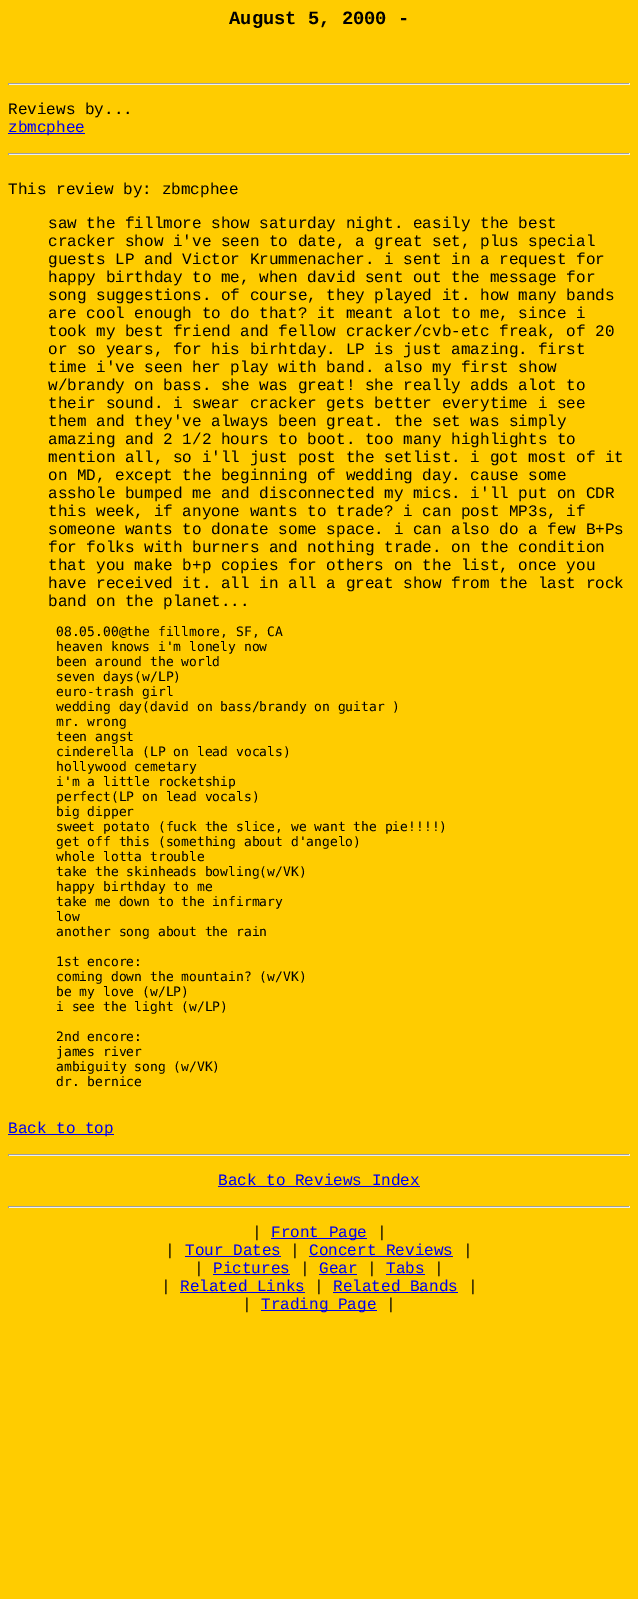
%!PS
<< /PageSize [638 1599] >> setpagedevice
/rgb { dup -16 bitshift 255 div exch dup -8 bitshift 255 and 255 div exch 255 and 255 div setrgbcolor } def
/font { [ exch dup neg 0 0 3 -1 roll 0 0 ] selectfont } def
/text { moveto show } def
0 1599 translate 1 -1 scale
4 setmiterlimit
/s1 { /LiberationMono-Bold 18.75 font 16#000000 rgb } def
/s2 { /LiberationMono-Regular 16 font 16#000000 rgb } def
/s3 { /LiberationMono-Regular 16 font 16#0000EE rgb } def
/s4 { /DejaVuSansMono-Regular 13 font 16#000000 rgb } def
16#FFCC00 rgb
0 0 638 1599 rectfill
s1
(August 5, 2000 -) 229 24 text
16#9F9F9F rgb
8 83 622 1 rectfill
16#EEEEEE rgb
629 83 1 2 rectfill
8 84 622 1 rectfill
16#9F9F9F rgb
8 83 1 2 rectfill
s2
(Reviews by...) 8 114 text
16#0000EE rgb
8 133 77 1 rectfill
(zbmcphee) 8 132 text
16#9F9F9F rgb
8 153 622 1 rectfill
16#EEEEEE rgb
629 153 1 2 rectfill
8 154 622 1 rectfill
16#9F9F9F rgb
8 153 1 2 rectfill
s2
(This review by: zbmcphee) 8 194 text
(saw the fillmore show saturday night. easily the best) 48 228 text
(cracker show i've seen to date, a great set, plus special) 48 246 text
(guests LP and Victor Krummenacher. i sent in a request for) 48 264 text
(happy birthday to me, when david sent out the message for) 48 282 text
(song suggestions. of course, they played it. how many bands) 48 300 text
(are cool enough to do that? it meant alot to me, since i) 48 318 text
(took my best friend and fellow cracker/cvb-etc freak, of 20) 48 336 text
(or so years, for his birhtday. LP is just amazing. first) 48 354 text
(time i've seen her play with band. also my first show) 48 372 text
(w/brandy on bass. she was great! she really adds alot to) 48 390 text
(their sound. i swear cracker gets better everytime i see) 48 408 text
(them and they've always been great. the set was simply) 48 426 text
(amazing and 2 1/2 hours to boot. too many highlights to) 48 444 text
(mention all, so i'll just post the setlist. i got most of it) 48 462 text
(on MD, except the beginning of wedding day. cause some) 48 480 text
(asshole bumped me and disconnected my mics. i'll put on CDR) 48 498 text
(this week, if anyone wants to trade? i can post MP3s, if) 48 516 text
(someone wants to donate some space. i can also do a few B+Ps) 48 534 text
(for folks with burners and nothing trade. on the condition) 48 552 text
(that you make b+p copies for others on the list, once you) 48 570 text
(have received it. all in all a great show from the last rock) 48 588 text
(band on the planet...) 48 606 text
s4
(08.05.00@the fillmore, SF, CA) 56 636 text
(heaven knows i'm lonely now) 56 651 text
(been around the world) 56 666 text
(seven days\(w/LP\)) 56 681 text
(euro-trash girl) 56 696 text
(wedding day\(david on bass/brandy on guitar \)) 56 711 text
(mr. wrong) 56 726 text
(teen angst) 56 741 text
(cinderella \(LP on lead vocals\)) 56 756 text
(hollywood cemetary) 56 771 text
(i'm a little rocketship) 56 786 text
(perfect\(LP on lead vocals\)) 56 801 text
(big dipper) 56 816 text
(sweet potato \(fuck the slice, we want the pie!!!!\)) 56 831 text
(get off this \(something about d'angelo\)) 56 846 text
(whole lotta trouble) 56 861 text
(take the skinheads bowling\(w/VK\)) 56 876 text
(happy birthday to me) 56 891 text
(take me down to the infirmary) 56 906 text
(low) 56 921 text
(another song about the rain) 56 936 text
(1st encore:) 56 966 text
(coming down the mountain? \(w/VK\)) 56 981 text
(be my love \(w/LP\)) 56 996 text
(i see the light \(w/LP\)) 56 1011 text
(2nd encore:) 56 1041 text
(james river) 56 1056 text
(ambiguity song \(w/VK\)) 56 1071 text
(dr. bernice) 56 1086 text
16#0000EE rgb
8 1134 106 1 rectfill
s3
(Back to top) 8 1133 text
16#9F9F9F rgb
8 1154 622 1 rectfill
16#EEEEEE rgb
629 1154 1 2 rectfill
8 1155 622 1 rectfill
16#9F9F9F rgb
8 1154 1 2 rectfill
s3
(Back to Reviews Index) 218 1185 text
218 1186 202 1 rectfill
16#9F9F9F rgb
8 1206 622 1 rectfill
16#EEEEEE rgb
629 1206 1 2 rectfill
8 1207 622 1 rectfill
16#9F9F9F rgb
8 1206 1 2 rectfill
s2
(|) 252 1237 text
16#0000EE rgb
271 1238 96 1 rectfill
(Front Page) 271 1237 text
s2
(|) 377 1237 text
(|) 165 1255 text
s3
(Tour Dates) 185 1255 text
185 1256 96 1 rectfill
s2
(|) 290 1255 text
s3
(Concert Reviews) 309 1255 text
309 1256 144 1 rectfill
s2
(|) 463 1255 text
(|) 194 1273 text
s3
(Pictures) 213 1273 text
213 1274 77 1 rectfill
s2
(|) 300 1273 text
s3
(Gear) 319 1273 text
319 1274 38 1 rectfill
s2
(|) 367 1273 text
s3
(Tabs) 386 1273 text
386 1274 39 1 rectfill
s2
(|) 434 1273 text
(|) 161 1291 text
s3
(Related Links) 180 1291 text
180 1292 125 1 rectfill
s2
(|) 314 1291 text
s3
(Related Bands) 333 1291 text
333 1292 125 1 rectfill
s2
(|) 468 1291 text
(|) 242 1309 text
16#0000EE rgb
261 1310 116 1 rectfill
(Trading Page) 261 1309 text
s2
(|) 386 1309 text
showpage
